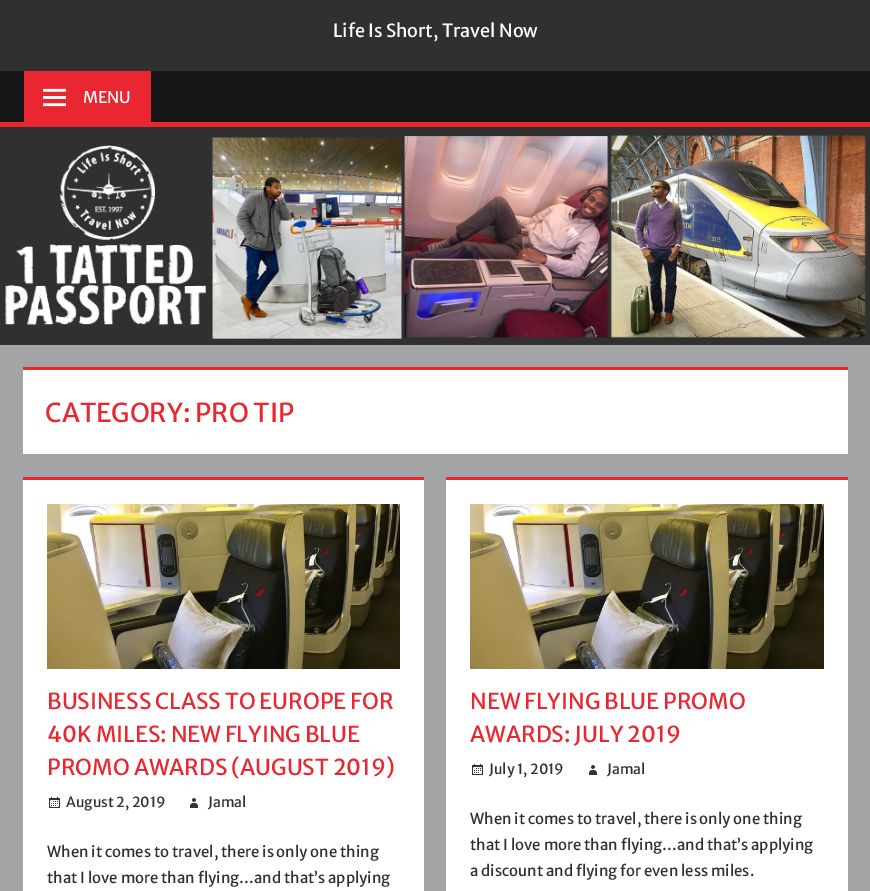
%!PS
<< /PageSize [870 891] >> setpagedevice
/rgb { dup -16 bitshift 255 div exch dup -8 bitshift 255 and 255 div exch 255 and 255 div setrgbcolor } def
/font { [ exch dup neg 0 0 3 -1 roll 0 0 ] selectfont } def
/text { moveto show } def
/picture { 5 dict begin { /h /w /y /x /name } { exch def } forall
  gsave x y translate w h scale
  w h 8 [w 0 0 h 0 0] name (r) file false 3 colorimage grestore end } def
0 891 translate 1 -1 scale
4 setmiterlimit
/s1 { /MerriweatherSans-Regular 18 font 16#FFFFFF rgb } def
/s2 { /MerriweatherSans-Regular 16 font 16#FFFFFF rgb } def
/s3 { /MerriweatherSans-Regular 26 font 16#E92730 rgb } def
/s4 { /MerriweatherSans-Regular 22 font 16#E92730 rgb } def
/s5 { /MerriweatherSans-Regular 14 font 16#303030 rgb } def
/s6 { /MerriweatherSans-Regular 15 font 16#303030 rgb } def
16#A2A4A6 rgb
0 0 870 891 rectfill
16#303030 rgb
0 0 870 71 rectfill
s1
(Life Is Short, Travel Now) 333 37 text
16#161616 rgb
0 71 870 51 rectfill
16#E92730 rgb
0 122 870 5 rectfill
24 71 127 51 rectfill
(pic1.raw) 43 88 23 19 picture
s2
(MENU) 83 103 text
(pic2.raw) 0 127 870 218 picture
23 370 825 84 rectfill
16#E92730 rgb
23 367 825 3 rectfill
s3
(CATEGORY: PRO TIP) 45 422 text
16#FFFFFF rgb
23 480 401 411 rectfill
16#E92730 rgb
23 477 401 3 rectfill
(pic3.raw) 47 504 353 165 picture
s4
(BUSINESS CLASS TO EUROPE FOR) 47 709 text
(40K MILES: NEW FLYING BLUE) 47 742 text
(PROMO AWARDS \(AUGUST 2019\)) 47 775 text
(pic4.raw) 49 797 11 11 picture
s5
(August 2, 2019) 66 807 text
(pic5.raw) 190 798 8 10 picture
(Jamal) 208 807 text
s6
(When it comes to travel, there is only one thing) 47 857 text
(that I love more than flying…and that’s applying) 47 883 text
16#FFFFFF rgb
446 480 402 411 rectfill
16#E92730 rgb
446 477 402 3 rectfill
(pic6.raw) 470 504 354 165 picture
s4
(NEW FLYING BLUE PROMO) 470 709 text
(AWARDS: JULY 2019) 470 742 text
(pic4.raw) 472 764 11 11 picture
s5
(July 1, 2019) 489 774 text
(pic5.raw) 589 765 8 10 picture
(Jamal) 607 774 text
s6
(When it comes to travel, there is only one thing) 470 824 text
(that I love more than flying…and that’s applying) 470 850 text
(a discount and flying for even less miles.) 470 876 text
showpage
